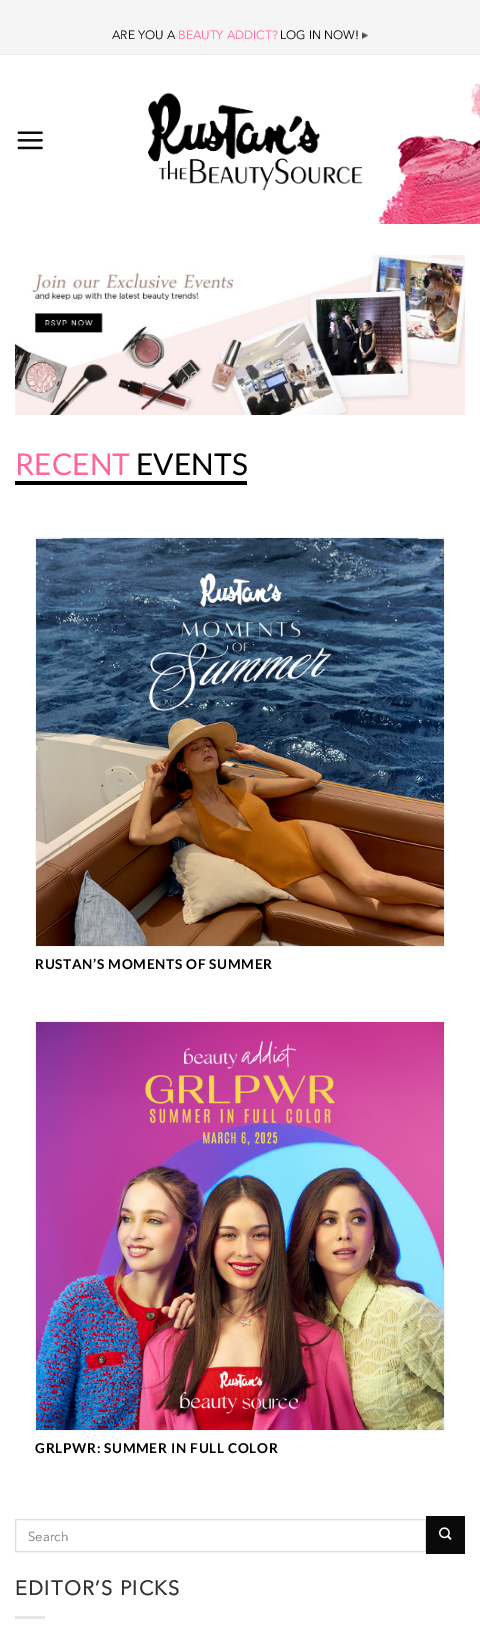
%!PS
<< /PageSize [480 1633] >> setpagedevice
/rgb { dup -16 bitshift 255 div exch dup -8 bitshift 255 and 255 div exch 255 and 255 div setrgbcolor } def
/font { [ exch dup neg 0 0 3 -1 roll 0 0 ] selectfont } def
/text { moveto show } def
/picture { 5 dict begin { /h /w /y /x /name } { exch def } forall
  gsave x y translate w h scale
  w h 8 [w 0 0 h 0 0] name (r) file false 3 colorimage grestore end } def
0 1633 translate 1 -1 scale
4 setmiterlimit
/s1 { /AvenirNext-Regular 12 font 16#000000 rgb } def
/s2 { /AvenirNext-Regular 12 font 16#FF6699 rgb } def
/s3 { /Lato-Regular 30 font 16#FF6699 rgb } def
/s4 { /Lato-Regular 30 font 16#000000 rgb } def
/s5 { /AvenirNext-Regular 13 font 16#757575 rgb } def
16#FFFFFF rgb
0 0 480 1633 rectfill
16#F5F5F5 rgb
0 0 480 54 rectfill
16#E8E8E8 rgb
0 54 480 1 rectfill
s1
(ARE YOU A) 112 39 text
s2
(BEAUTY ADDICT?) 178 39 text
s1
(LOG IN NOW!) 280 39 text
(pic1.raw) 362 31 7 8 picture
(pic2.raw) 17 131 26 19 picture
(pic3.raw) 148 92 214 98 picture
(pic4.raw) 377 83 103 141 picture
(pic5.raw) 15 255 450 160 picture
15 481 232 4 rectfill
s3
(RECENT) 15 475 text
s4
(EVENTS) 136 475 text
16#F5F5F5 rgb
35.5 537.5 409 409 rectstroke
(pic6.raw) 36 538 408 408 picture
/Lato-Bold 13.6 font
16#000000 rgb
35 969 moveto 0.7 0 (RUSTAN’S MOMENTS OF SUMMER) ashow
16#F5F5F5 rgb
35.5 1021.5 409 409 rectstroke
(pic7.raw) 36 1022 408 408 picture
16#000000 rgb
35 1453 moveto 0.7 0 (GRLPWR: SUMMER IN FULL COLOR) ashow
16#DDDDDD rgb
15.5 1519.5 410 32 rectstroke
s5
(Search) 28 1541 text
16#0A0A0A rgb
426 1516 39 38 rectfill
(pic8.raw) 439 1527 13 13 picture
/AvenirNext-Bold 20 font
16#333333 rgb
15 1595 moveto 1.25 0 (EDITOR’S PICKS) ashow
16#E6E6E6 rgb
15 1616 30 3 rectfill
showpage
